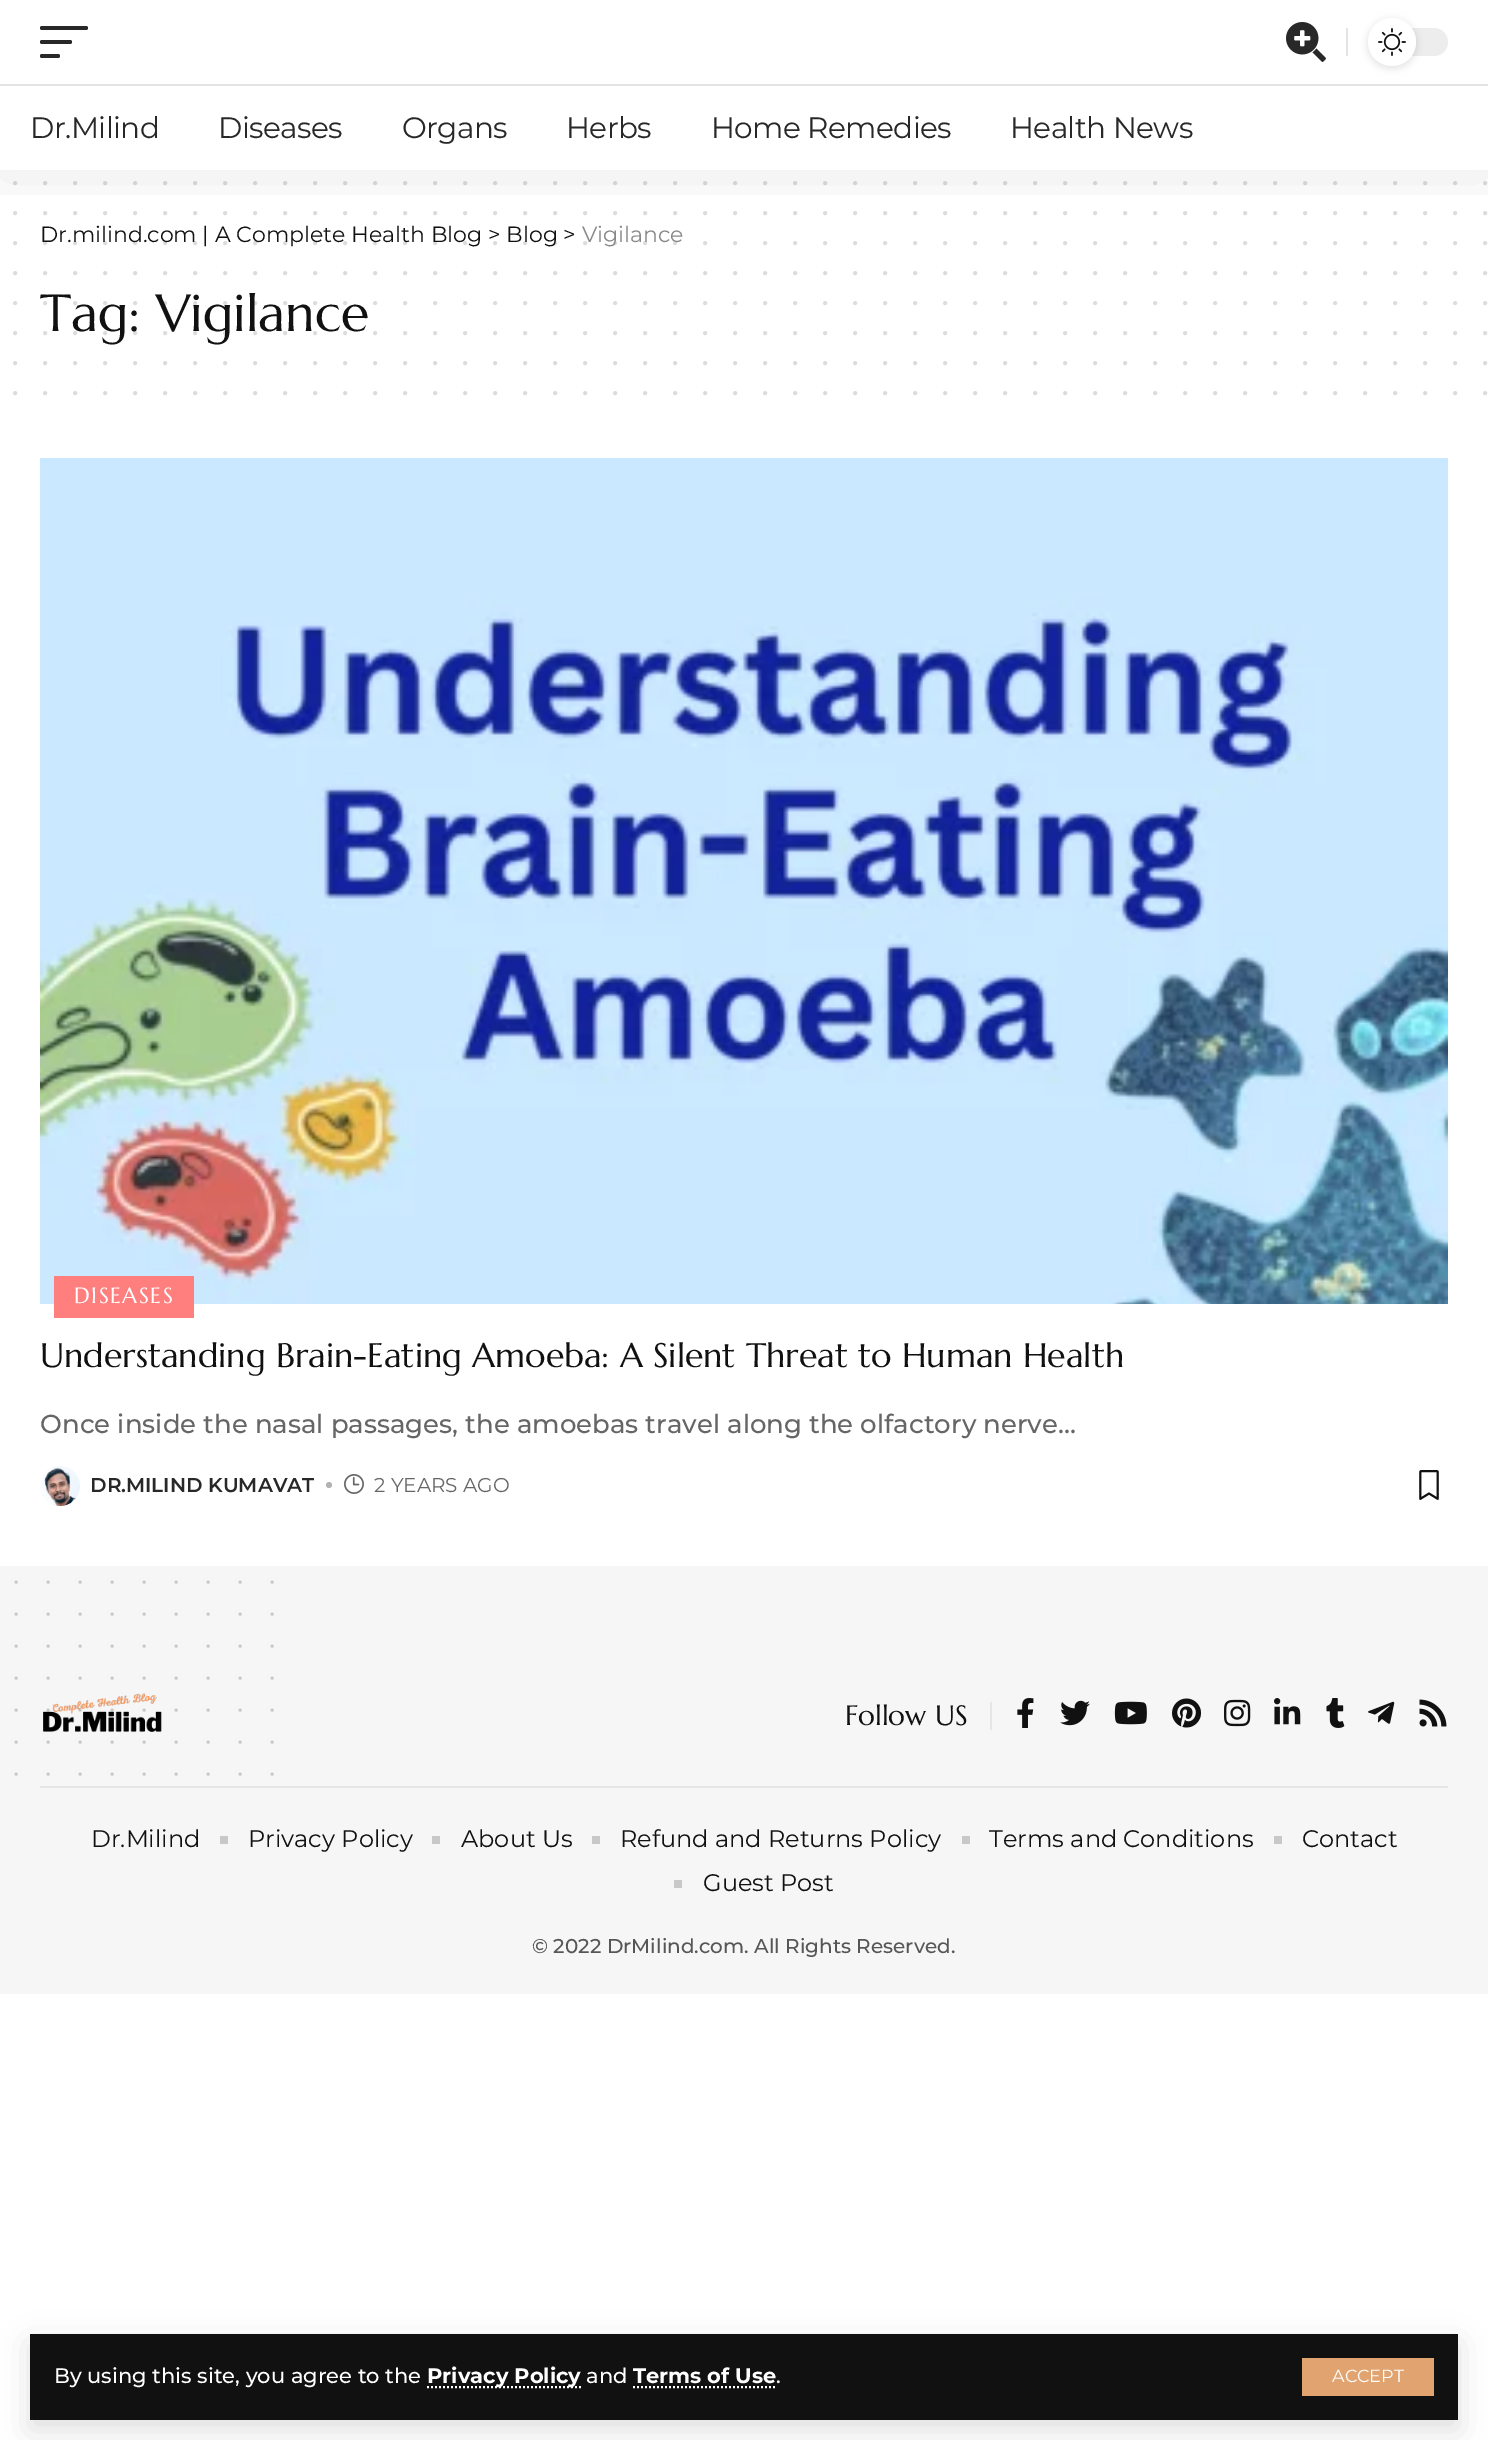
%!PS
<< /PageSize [1488 2440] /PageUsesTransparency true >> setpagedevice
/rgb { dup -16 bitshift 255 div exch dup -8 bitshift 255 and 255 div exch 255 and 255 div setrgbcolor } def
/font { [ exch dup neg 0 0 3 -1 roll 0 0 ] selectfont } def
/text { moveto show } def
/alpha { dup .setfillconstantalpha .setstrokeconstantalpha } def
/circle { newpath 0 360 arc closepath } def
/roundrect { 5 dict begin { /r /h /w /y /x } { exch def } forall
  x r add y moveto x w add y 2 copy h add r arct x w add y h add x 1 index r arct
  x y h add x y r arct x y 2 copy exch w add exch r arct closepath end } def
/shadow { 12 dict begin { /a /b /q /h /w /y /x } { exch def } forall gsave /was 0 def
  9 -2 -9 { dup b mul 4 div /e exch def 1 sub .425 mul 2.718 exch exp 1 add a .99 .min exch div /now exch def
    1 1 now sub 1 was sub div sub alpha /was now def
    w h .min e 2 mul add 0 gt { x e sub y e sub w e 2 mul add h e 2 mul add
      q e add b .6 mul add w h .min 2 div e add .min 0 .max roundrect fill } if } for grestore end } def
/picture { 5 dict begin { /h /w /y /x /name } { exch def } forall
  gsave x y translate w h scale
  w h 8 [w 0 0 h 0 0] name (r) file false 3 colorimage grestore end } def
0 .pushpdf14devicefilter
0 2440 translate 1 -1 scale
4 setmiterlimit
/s1 { /Montserrat-Regular 22 font 16#111111 rgb } def
/s2 { /Montserrat-Medium 21 font 16#FFFFFF rgb } def
/s3 { /Montserrat-Bold 21 font 16#FFFFFF rgb } def
/s4 { /Montserrat-Regular 17.5 font 16#FFFFFF rgb } def
/s5 { /Marcellus-Regular 52 font 16#111111 rgb } def
/s6 { /Montserrat-Regular 22 font 16#888888 rgb } def
/s7 { /Marcellus-Regular 34 font 16#111111 rgb } def
/s8 { /Montserrat-Medium 26 font 16#666666 rgb } def
/s9 { /Montserrat-SemiBold 20 font 16#282828 rgb } def
/s10 { /Montserrat-Regular 20 font 16#666666 rgb } def
/s11 { /Marcellus-Regular 28 font 16#111111 rgb } def
/s12 { /Montserrat-Regular 24 font 16#111111 rgb } def
/s13 { /Montserrat-Medium 20 font 16#565656 rgb } def
16#FFFFFF rgb
0 0 1488 2440 rectfill
16#DBDBDB rgb
4 setlinewidth
1 setlinecap
[0 30] 0 setdash
15 183 moveto 1485.4 183 lineto stroke
15 213 moveto 1485.4 213 lineto stroke
s1
(Dr.milind.com | A Complete Health Blog > Blog >) 40 242 text
0.15 alpha
15 243 moveto 1485.4 243 lineto stroke
gsave
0 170 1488 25 rectclip
1 alpha
16#000000 rgb
0 8 1488 170 0 30 0.07 shadow
grestore
1 alpha
16#282828 rgb
40 26 48 4 2 roundrect fill
40 40 32 4 2 roundrect fill
40 54 20 4 2 roundrect fill
(pic1.raw) 1286 22 40 40 picture
16#E4E4E4 rgb
1346 28 2 28 rectfill
16#EDEDED rgb
1368 28 80 28 14 roundrect fill
16#000000 rgb
1368 20 48 48 24 4 0.12 shadow
16#FFFFFF rgb
1392 42 24 circle fill
(pic2.raw) 1378 28 28 28 picture
16#E4E4E4 rgb
0 84 1488 2 rectfill
/Montserrat-Regular 29.5 font
16#282828 rgb
30 138 moveto -0.6 0 (Dr.Milind) ashow
218 138 moveto -0.6 0 (Diseases) ashow
402 138 moveto -0.6 0 (Organs) ashow
566 138 moveto -0.6 0 (Herbs) ashow
711 138 moveto -0.6 0 (Home Remedies) ashow
1010 138 moveto -0.6 0 (Health News) ashow
16#000000 rgb
30 2344 1428 86 0 15 0.12 shadow
16#111111 rgb
30 2334 1428 86 rectfill
s2
(By using this site, you agree to the) 54 2383 text
2 setlinewidth
0 setlinecap
[2 2] 0 setdash
427 2387 moveto 581 2387 lineto stroke
s3
(Privacy Policy) 427 2383 text
s2
(and) 586 2383 text
s3
(Terms of Use) 633 2383 text
633 2387 moveto 776.5 2387 lineto stroke
s2
(.) 776 2383 text
16#E1A470 rgb
1302 2358 132 38 rectfill
s4
(ACCEPT) 1332 2382 text
16#DBDBDB rgb
4 setlinewidth
1 setlinecap
[0 30] 0 setdash
15 273 moveto 1485.4 273 lineto stroke
s5
(Tag: Vigilance) 40 331 text
0.15 alpha
15 303 moveto 1485.4 303 lineto stroke
15 333 moveto 1485.4 333 lineto stroke
1 alpha
16#DBDBDB rgb
15 363 moveto 1485.4 363 lineto stroke
15 393 moveto 1485.4 393 lineto stroke
s6
(Vigilance) 582 242 text
(pic3.raw) 40 458 1408 846 picture
16#FF7E7E rgb
54 1276 140 42 rectfill
/Marcellus-Regular 22 font
16#FFFFFF rgb
74 1303 moveto 1.5 0 (DISEASES) ashow
s7
(Understanding Brain-Eating Amoeba: A Silent Threat to Human Health) 40 1367 text
s8
(Once inside the nasal passages, the amoebas travel along the olfactory nerve…) 40 1433 text
(pic4.raw) 40 1466 40 40 picture
s9
(DR.MILIND KUMAVAT) 90 1492 text
16#B3B3B3 rgb
329 1485 3 circle fill
(pic5.raw) 344 1474 20 20 picture
s10
(2 YEARS AGO) 374 1492 text
(pic6.raw) 1419 1470 20 30 picture
16#F6F6F6 rgb
0 1566 1488 428 rectfill
16#C8C8C8 rgb
3 setlinewidth
[0 32] 0 setdash
16 1582 moveto 272.4 1582 lineto stroke
16 1614 moveto 272.4 1614 lineto stroke
16 1646 moveto 272.4 1646 lineto stroke
16 1678 moveto 272.4 1678 lineto stroke
(pic7.raw) 43 1693 119 39 picture
0.2 alpha
16#111111 rgb
16 1710 moveto 272.4 1710 lineto stroke
1 alpha
16#C8C8C8 rgb
16 1742 moveto 272.4 1742 lineto stroke
16 1774 moveto 272.4 1774 lineto stroke
16#E6E6E6 rgb
990 1702 2 28 rectfill
s11
(Follow US) 845 1725 text
(pic8.raw) 1017 1698 17 30 picture
(pic9.raw) 1060 1700 30 26 picture
(pic10.raw) 1114 1701 33 24 picture
(pic11.raw) 1172 1698 29 30 picture
(pic12.raw) 1224 1699 27 28 picture
(pic13.raw) 1274 1698 27 27 picture
(pic14.raw) 1326 1698 19 30 picture
(pic15.raw) 1368 1701 27 23 picture
(pic16.raw) 1419 1699 28 28 picture
16#E6E6E6 rgb
40 1786 1408 2 rectfill
s12
(Dr.Milind) 91 1847 text
16#C8C8C8 rgb
220 1836 8 8 rectfill
s12
(Privacy Policy) 248 1847 text
16#C8C8C8 rgb
432 1836 8 8 rectfill
s12
(About Us) 461 1847 text
16#C8C8C8 rgb
592 1836 8 8 rectfill
s12
(Refund and Returns Policy) 620 1847 text
16#C8C8C8 rgb
962 1836 8 8 rectfill
s12
(Terms and Conditions) 989 1847 text
16#C8C8C8 rgb
1274 1836 8 8 rectfill
s12
(Contact) 1302 1847 text
16#C8C8C8 rgb
674 1880 8 8 rectfill
s12
(Guest Post) 703 1891 text
s13
(© 2022 DrMilind.com. All Rights Reserved.) 532 1953 text
.poppdf14devicefilter showpage
